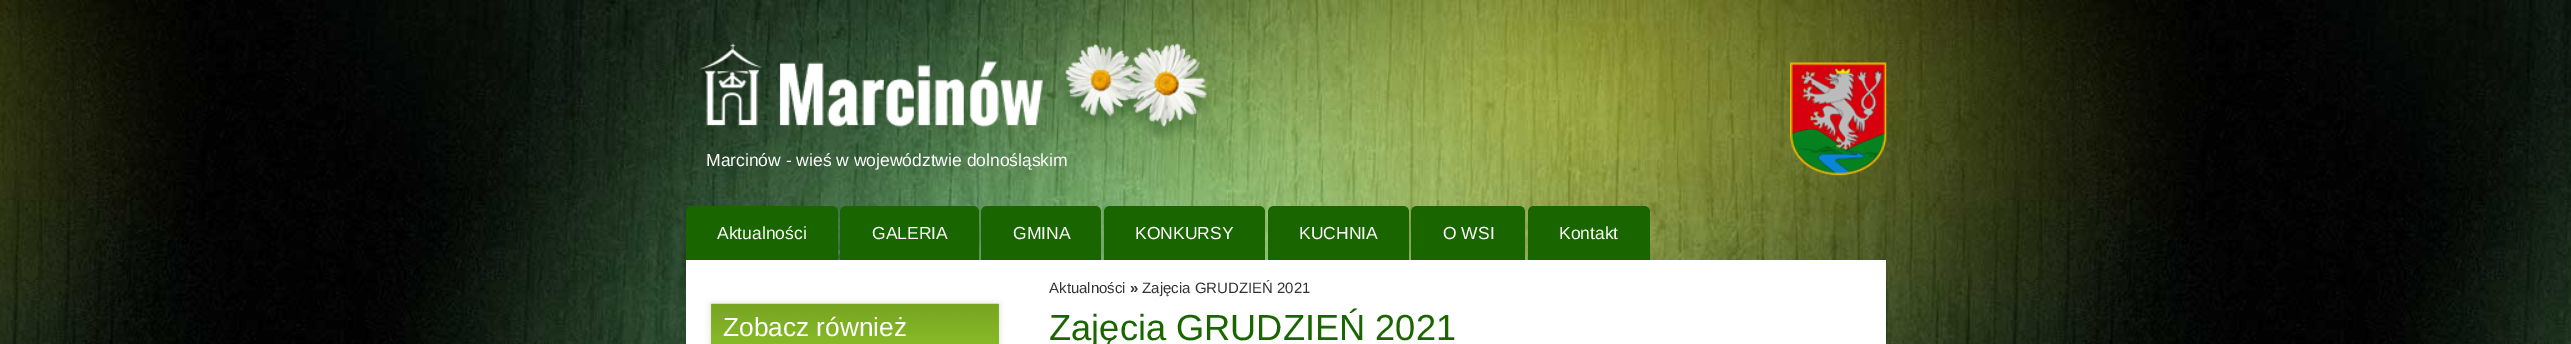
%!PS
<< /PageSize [2571 344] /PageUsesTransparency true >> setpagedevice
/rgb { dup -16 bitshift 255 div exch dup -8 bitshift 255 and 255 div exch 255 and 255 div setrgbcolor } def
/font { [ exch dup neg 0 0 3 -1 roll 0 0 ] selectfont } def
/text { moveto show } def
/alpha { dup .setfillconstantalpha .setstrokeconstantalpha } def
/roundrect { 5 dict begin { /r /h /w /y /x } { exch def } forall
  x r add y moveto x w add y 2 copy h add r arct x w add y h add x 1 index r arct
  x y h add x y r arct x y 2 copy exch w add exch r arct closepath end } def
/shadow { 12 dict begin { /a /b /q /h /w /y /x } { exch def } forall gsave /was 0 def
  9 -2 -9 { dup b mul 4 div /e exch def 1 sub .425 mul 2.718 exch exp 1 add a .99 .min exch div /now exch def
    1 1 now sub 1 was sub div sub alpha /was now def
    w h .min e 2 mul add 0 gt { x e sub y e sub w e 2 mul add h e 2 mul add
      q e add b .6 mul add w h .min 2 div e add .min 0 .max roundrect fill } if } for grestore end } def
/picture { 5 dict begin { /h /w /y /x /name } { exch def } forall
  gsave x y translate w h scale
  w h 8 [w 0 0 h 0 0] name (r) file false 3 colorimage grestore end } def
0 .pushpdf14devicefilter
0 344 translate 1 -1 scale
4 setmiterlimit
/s1 { /LiberationSans-Regular 17.5 font 16#FFFFFF rgb } def
/s2 { /LiberationSans-Regular 26.25 font 16#FFFFFF rgb } def
/s3 { /LiberationSans-Regular 15 font 16#333333 rgb } def
/s4 { /LiberationSans-Bold 15 font 16#333333 rgb } def
/s5 { /LiberationSans-Regular 36.25 font 16#196600 rgb } def
16#FFFFFF rgb
0 0 2571 344 rectfill
(pic1.raw) 0 0 2571 344 picture
(pic2.raw) 1790 62 97 114 picture
(pic3.raw) 699 43 511 98 picture
s1
(Marcinów - wieś w województwie dolnośląskim) 706 166 text
16#196600 rgb
692 206 moveto 832 206 lineto 835.5 206 838 208.5 838 212 curveto 838 260 lineto 686 260 lineto 686 212 lineto 686 208.5 688.5 206 692 206 curveto closepath fill
s1
(Aktualności) 717 239 text
16#196600 rgb
846 206 moveto 973 206 lineto 976.5 206 979 208.5 979 212 curveto 979 260 lineto 840 260 lineto 840 212 lineto 840 208.5 842.5 206 846 206 curveto closepath fill
s1
(GALERIA) 872 239 text
16#196600 rgb
987 206 moveto 1095 206 lineto 1098.5 206 1101 208.5 1101 212 curveto 1101 260 lineto 981 260 lineto 981 212 lineto 981 208.5 983.5 206 987 206 curveto closepath fill
s1
(GMINA) 1013 239 text
16#196600 rgb
1110 206 moveto 1259 206 lineto 1262.5 206 1265 208.5 1265 212 curveto 1265 260 lineto 1104 260 lineto 1104 212 lineto 1104 208.5 1106.5 206 1110 206 curveto closepath fill
s1
(KONKURSY) 1135 239 text
16#196600 rgb
1274 206 moveto 1403 206 lineto 1406.5 206 1409 208.5 1409 212 curveto 1409 260 lineto 1268 260 lineto 1268 212 lineto 1268 208.5 1270.5 206 1274 206 curveto closepath fill
s1
(KUCHNIA) 1299 239 text
16#196600 rgb
1417 206 moveto 1519 206 lineto 1522.5 206 1525 208.5 1525 212 curveto 1525 260 lineto 1411 260 lineto 1411 212 lineto 1411 208.5 1413.5 206 1417 206 curveto closepath fill
s1
(O WSI) 1443 239 text
16#196600 rgb
1534 206 moveto 1644 206 lineto 1647.5 206 1650 208.5 1650 212 curveto 1650 260 lineto 1528 260 lineto 1528 212 lineto 1528 208.5 1530.5 206 1534 206 curveto closepath fill
s1
(Kontakt) 1559 239 text
686 260 1200 84 rectfill
16#000000 rgb
711 304 288 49 0 3 0.15 shadow
(pic4.raw) 711 303 288 41 picture
s2
(Zobacz również) 723 336 text
s3
(Aktualności) 1049 293 text
s4
(») 1130 293 text
s3
(Zajęcia GRUDZIEŃ 2021) 1142 293 text
s5
(Zajęcia GRUDZIEŃ 2021) 1049 340 text
.poppdf14devicefilter showpage
